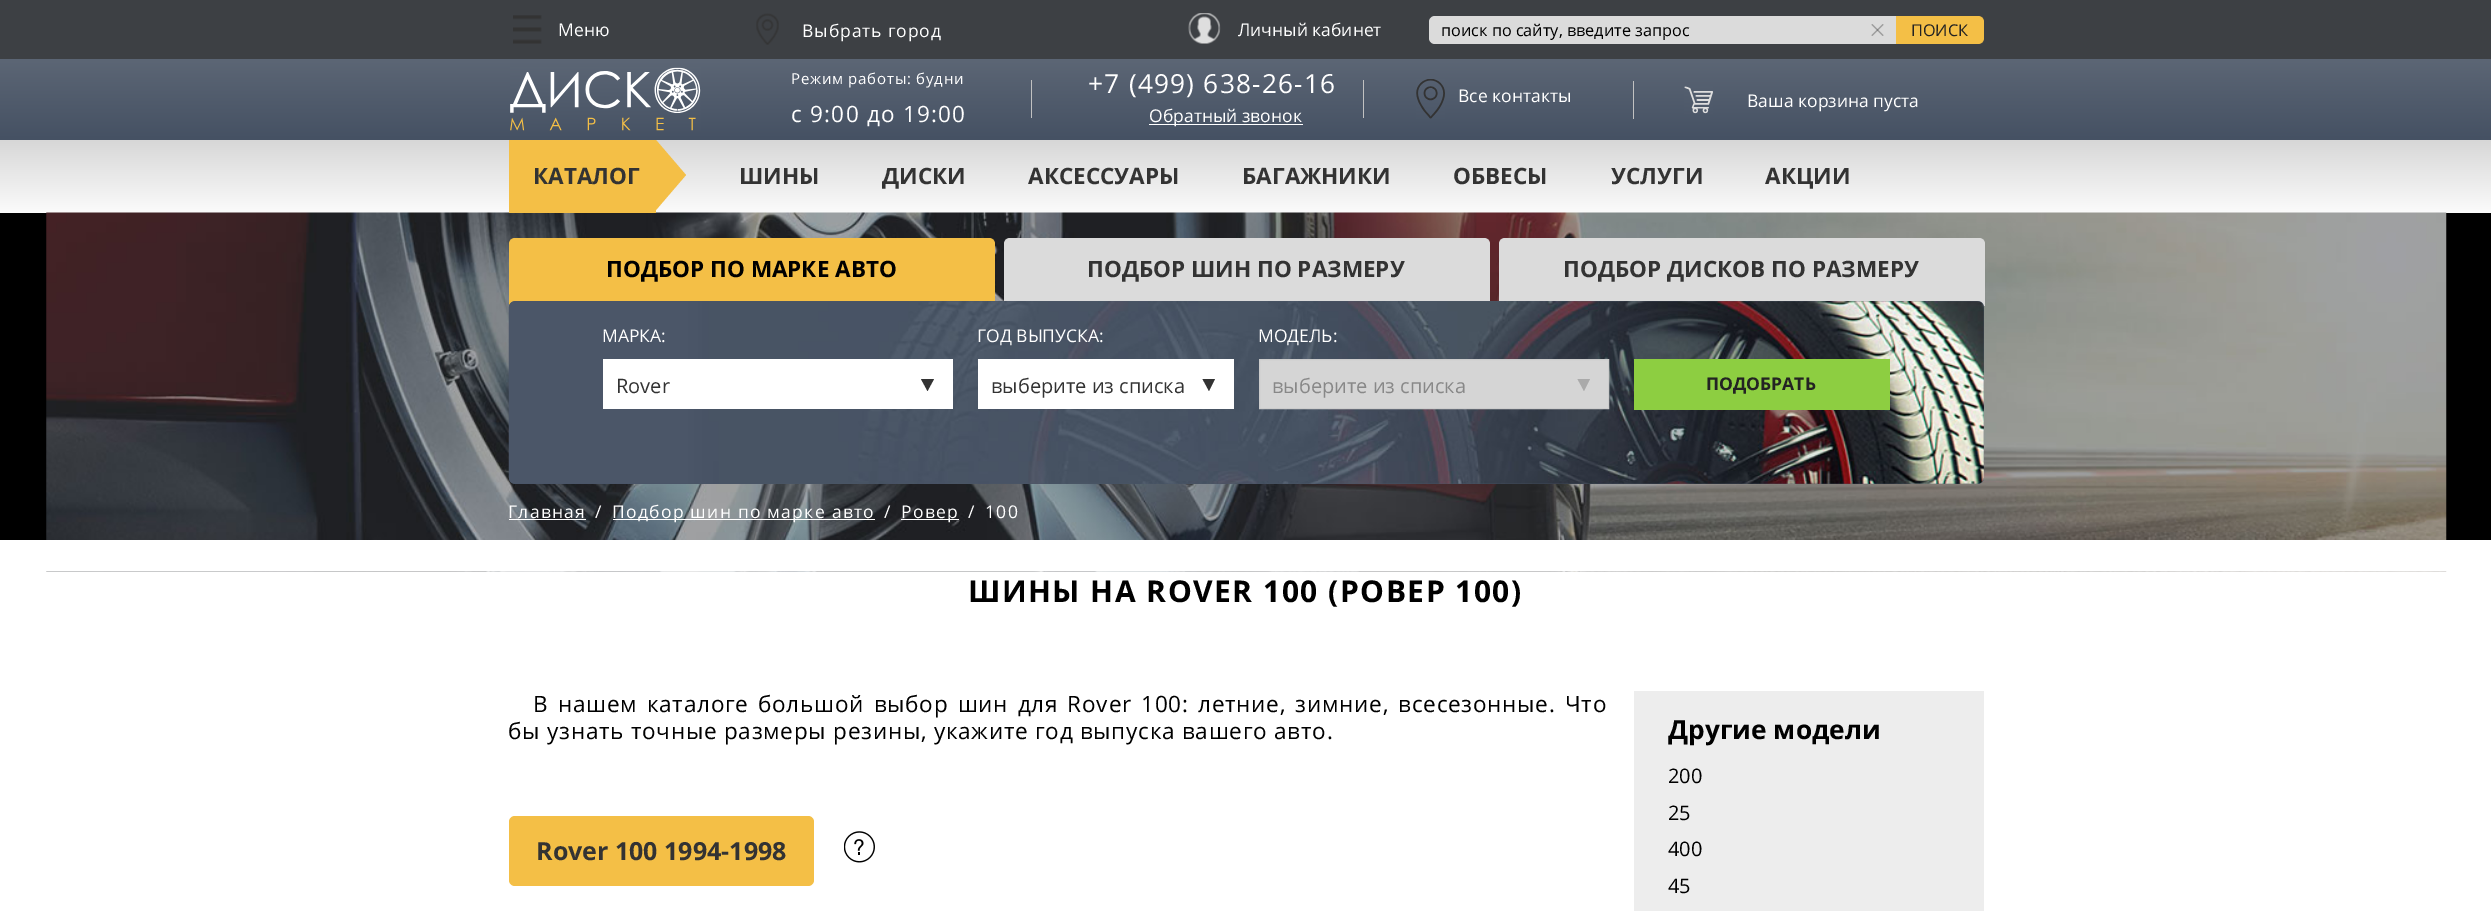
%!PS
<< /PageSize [2491 911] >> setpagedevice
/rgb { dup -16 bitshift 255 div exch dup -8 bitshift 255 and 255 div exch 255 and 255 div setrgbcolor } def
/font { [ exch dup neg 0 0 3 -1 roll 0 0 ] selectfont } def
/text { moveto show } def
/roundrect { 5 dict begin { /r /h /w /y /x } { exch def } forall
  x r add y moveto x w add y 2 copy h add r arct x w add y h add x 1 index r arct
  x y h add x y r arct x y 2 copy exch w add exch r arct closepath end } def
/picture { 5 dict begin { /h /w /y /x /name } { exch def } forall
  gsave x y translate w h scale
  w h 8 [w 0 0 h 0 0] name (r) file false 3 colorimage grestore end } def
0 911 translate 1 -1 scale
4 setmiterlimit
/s1 { /OpenSans-Regular 17.5 font 16#FFFFFF rgb } def
/s2 { /OpenSans-Regular 16.25 font 16#000000 rgb } def
/s3 { /OpenSans-Regular 16.25 font 16#232323 rgb } def
/s4 { /OpenSans-Bold 22.5 font 16#333333 rgb } def
/s5 { /OpenSans-Bold 22.5 font 16#000000 rgb } def
/s6 { /OpenSans-Regular 20 font 16#333333 rgb } def
/s7 { /OpenSans-Regular 20 font 16#888888 rgb } def
/s8 { /OpenSans-Bold 17.5 font 16#232323 rgb } def
/s9 { /OpenSans-Bold 25 font 16#333333 rgb } def
/s10 { /OpenSans-Bold 26.25 font 16#000000 rgb } def
/s11 { /OpenSans-Regular 20 font 16#000000 rgb } def
16#FFFFFF rgb
0 0 2491 911 rectfill
16#3D4044 rgb
0 0 2491 59 rectfill
(pic1.raw) 513 15 29 29 picture
s1
(Меню) 558 36 text
(pic2.raw) 756 13 23 32 picture
802 37 moveto 0.9 0 (Выбрать город) ashow
(pic3.raw) 1188 13 33 31 picture
(Личный кабинет) 1238 36 text
16#DBDBDB rgb
1429 16 520 28 6 roundrect fill
s2
(поиск по сайту, введите запрос) 1441 36 text
(pic4.raw) 1871 24 13 12 picture
16#F4BF46 rgb
1896 16 moveto 1978 16 lineto 1981.5 16 1984 18.5 1984 22 curveto 1984 38 lineto 1984 41.5 1981.5 44 1978 44 curveto 1896 44 lineto closepath fill
s3
(ПОИСК) 1911 36 text
gsave 0 59 moveto 2491 59 lineto 2491 140 lineto 0 140 lineto closepath clip newpath
<< /ShadingType 2 /ColorSpace /DeviceRGB /Coords [1246 59 1246 140] /Extend [true true] /Function << /FunctionType 2 /Domain [0 1] /C0 [0.361 0.4 0.459] /C1 [0.271 0.318 0.388] /N 1 >> >> shfill grestore
(pic5.raw) 510 67 191 64 picture
/OpenSans-Regular 15 font
16#FFFFFF rgb
791 84 moveto 0.75 0 (Режим работы: будни) ashow
/OpenSans-Regular 22.5 font
791 122 moveto 1.25 0 (с 9:00 до 19:00) ashow
16#C1C1C1 rgb
1031 80 1 38 rectfill
/OpenSans-Regular 26.25 font
16#FFFFFF rgb
1088 93 moveto 1.25 0 (+7 \(499\) 638-26-16) ashow
16#C1C1C1 rgb
1363 80 1 38 rectfill
16#FFFFFF rgb
1149 124 154 1 rectfill
s1
(Обратный звонок) 1149 122 text
(pic6.raw) 1416 79 29 40 picture
(Все контакты) 1458 102 text
16#C1C1C1 rgb
1633 81 1 38 rectfill
(pic7.raw) 1684 86 29 28 picture
s1
(Ваша корзина пуста) 1747 107 text
gsave 0 140 moveto 2491 140 lineto 2491 213 lineto 0 213 lineto closepath clip newpath
<< /ShadingType 2 /ColorSpace /DeviceRGB /Coords [1246 140 1246 213] /Extend [true true] /Function << /FunctionType 2 /Domain [0 1] /C0 [0.843 0.843 0.843] /C1 [0.984 0.984 0.984] /N 1 >> >> shfill grestore
16#000000 rgb
0 213 2491 327 rectfill
(pic8.raw) 46 212 2401 360 picture
16#F4BF46 rgb
509 140 147 73 rectfill
s4
(КАТАЛОГ) 533 184 text
16#F4BF46 rgb
656 210 moveto 656 140 lineto 686 175 lineto closepath fill
s4
(ШИНЫ) 739 184 text
(ДИСКИ) 882 184 text
(АКСЕССУАРЫ) 1028 184 text
(БАГАЖНИКИ) 1242 184 text
(ОБВЕСЫ) 1453 184 text
(УСЛУГИ) 1611 184 text
(АКЦИИ) 1765 184 text
16#F4BF46 rgb
515 238 moveto 989 238 lineto 992.5 238 995 240.5 995 244 curveto 995 306 lineto 509 306 lineto 509 244 lineto 509 240.5 511.5 238 515 238 curveto closepath fill
s5
(ПОДБОР ПО МАРКЕ АВТО) 606 277 text
16#DBDBDB rgb
1010 238 moveto 1484 238 lineto 1487.5 238 1490 240.5 1490 244 curveto 1490 306 lineto 1004 306 lineto 1004 244 lineto 1004 240.5 1006.5 238 1010 238 curveto closepath fill
s4
(ПОДБОР ШИН ПО РАЗМЕРУ) 1087 277 text
16#DBDBDB rgb
1505 238 moveto 1979 238 lineto 1982.5 238 1985 240.5 1985 244 curveto 1985 306 lineto 1499 306 lineto 1499 244 lineto 1499 240.5 1501.5 238 1505 238 curveto closepath fill
s4
(ПОДБОР ДИСКОВ ПО РАЗМЕРУ) 1563 277 text
16#4A5667 rgb
509 301 1475 183 6 roundrect fill
(pic9.raw) 508 301 1476 183 picture
s1
(МАРКА:) 602 342 text
(ГОД ВЫПУСКА:) 977 342 text
(МОДЕЛЬ:) 1258 342 text
603 359 350 50 rectfill
s6
(Rover) 616 393 text
921 379 moveto 934 379 lineto 927.5 391 lineto closepath fill
16#FFFFFF rgb
978 359 256 50 rectfill
s6
(выберите из списка) 991 393 text
1202.5 379 moveto 1215 379 lineto 1209 391 lineto closepath fill
16#D5D5D5 rgb
1259.5 359.5 moveto 1608.5 359.5 lineto 1608.5 408.5 lineto 1259.5 408.5 lineto closepath gsave fill grestore
16#CCCCCC rgb
stroke
s7
(выберите из списка) 1272 393 text
16#AAAAAA rgb
1577.5 379 moveto 1590 379 lineto 1584 391 lineto closepath fill
16#8DCE41 rgb
1634 359 256 51 rectfill
s8
(ПОДОБРАТЬ) 1706 390 text
/OpenSans-Regular 17.5 font
16#FFFFFF rgb
508 518 moveto 1.25 0 (Главная) ashow
509 519 77 1 rectfill
595 518 moveto 1.25 0 (/) ashow
613 519 262 1 rectfill
612 518 moveto 1.25 0 (Подбор шин по марке авто) ashow
884 518 moveto 1.25 0 (/) ashow
901 519 58 1 rectfill
901 518 moveto 1.25 0 (Ровер) ashow
968 518 moveto 1.25 0 (/) ashow
985 518 moveto 1.25 0 (100) ashow
46 540 2401 31 rectfill
/OpenSans-Bold 30 font
16#000000 rgb
968 602 moveto 1.5 0 (ШИНЫ НА ROVER 100 \(РОВЕР 100\)) ashow
/OpenSans-Regular 22.5 font
533 712 moveto 2.75 0 32 0.75 0 (В нашем каталоге большой выбор шин для Rover 100: летние, зимние, всесезонные. Что) awidthshow
508 739 moveto 0.75 0 (бы узнать точные размеры резины, укажите год выпуска вашего авто.) ashow
16#F4BF46 rgb
509 816 305 70 6 roundrect fill
s9
(Rover 100 1994-1998) 536 860 text
(pic10.raw) 844 831 31 32 picture
16#EDEDED rgb
1634 691 350 220 rectfill
s10
(Другие модели) 1668 739 text
s11
(200) 1668 783 text
(25) 1668 820 text
(400) 1668 856 text
(45) 1668 893 text
showpage
